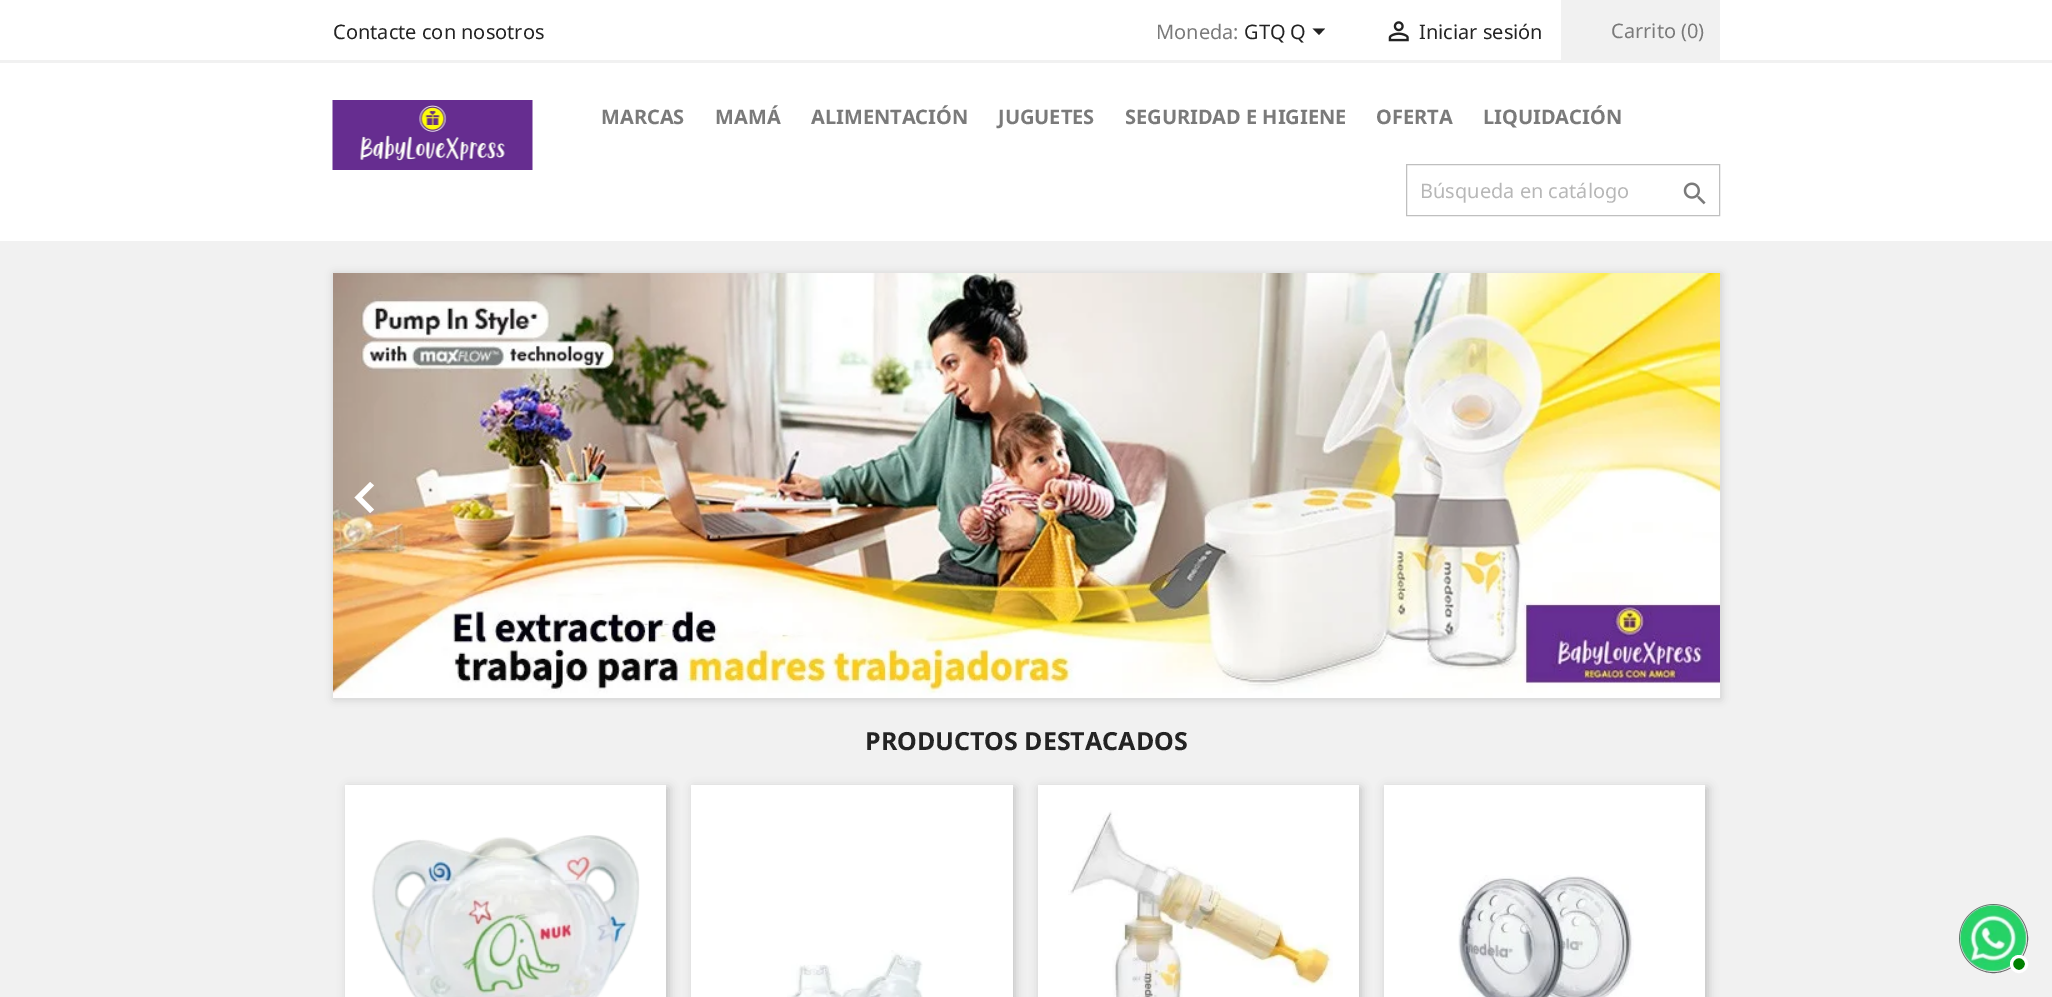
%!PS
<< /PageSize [2052 997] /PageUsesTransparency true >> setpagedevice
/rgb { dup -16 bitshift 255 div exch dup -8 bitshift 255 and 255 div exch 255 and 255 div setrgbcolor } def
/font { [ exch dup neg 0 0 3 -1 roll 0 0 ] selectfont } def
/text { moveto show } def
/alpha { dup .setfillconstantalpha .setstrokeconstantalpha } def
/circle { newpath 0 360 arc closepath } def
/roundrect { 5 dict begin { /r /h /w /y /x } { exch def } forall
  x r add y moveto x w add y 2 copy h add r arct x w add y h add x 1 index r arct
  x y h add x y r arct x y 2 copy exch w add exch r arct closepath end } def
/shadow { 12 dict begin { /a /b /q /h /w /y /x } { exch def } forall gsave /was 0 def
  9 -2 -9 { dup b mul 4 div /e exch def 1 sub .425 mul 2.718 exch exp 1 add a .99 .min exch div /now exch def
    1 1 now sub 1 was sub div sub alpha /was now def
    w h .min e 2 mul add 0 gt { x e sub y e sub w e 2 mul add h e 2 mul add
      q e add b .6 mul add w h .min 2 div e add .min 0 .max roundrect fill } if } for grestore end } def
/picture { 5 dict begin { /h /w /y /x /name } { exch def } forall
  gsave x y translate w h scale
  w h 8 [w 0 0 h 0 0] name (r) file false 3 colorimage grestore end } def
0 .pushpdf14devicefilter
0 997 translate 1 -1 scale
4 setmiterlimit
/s1 { /NotoSans-Regular 20 font 16#232323 rgb } def
/s2 { /NotoSans-Regular 20 font 16#7A7A7A rgb } def
/s3 { /NotoSans-Bold 20 font 16#7A7A7A rgb } def
/s4 { /NotoSans-Regular 20 font 16#B7B7B7 rgb } def
/s5 { /NotoSans-Bold 25 font 16#232323 rgb } def
16#FFFFFF rgb
0 0 2052 997 rectfill
16#F1F1F1 rgb
0 60 2052 3 rectfill
s1
(Contacte con nosotros) 333 39 text
s2
(Moneda:) 1156 39 text
s1
(GTQ Q) 1244 39 text
1312.5 28.5 moveto 1325 28.5 lineto 1319 35 lineto closepath fill
(pic1.raw) 1388 21 21 21 picture
(Iniciar sesión) 1419 39 text
16#F1F1F1 rgb
1561 0 159 60 rectfill
s2
(Carrito \(0\)) 1611 38 text
(pic2.raw) 332 100 201 70 picture
s3
(MARCAS) 601 124 text
(MAMÁ) 715 124 text
(ALIMENTACIÓN) 811 124 text
(JUGUETES) 998 124 text
(SEGURIDAD E HIGIENE) 1125 124 text
(OFERTA) 1376 124 text
(LIQUIDACIÓN) 1483 124 text
16#BFBFBF rgb
1406.5 164.5 313 51 rectstroke
s4
(Búsqueda en catálogo) 1420 198 text
(pic3.raw) 1683 182 23 23 picture
16#F1F1F1 rgb
0 241 2052 756 rectfill
16#000000 rgb
334 274 1387 425 0 4.5 0.15 shadow
(pic4.raw) 333 273 1387 425 picture
16#FFFFFF rgb
374 485.5 moveto 362 497.5 lineto 374 509.5 lineto 370 513 lineto 354.5 497.5 lineto 370 482 lineto closepath fill
1687.5 482 moveto 1703 497.5 lineto 1687.5 513 lineto 1683.5 509.5 lineto 1695.5 497.5 lineto 1683.5 485.5 lineto closepath fill
s5
(PRODUCTOS DESTACADOS) 865 750 text
16#000000 rgb
348 788 321 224 0 5 0.2 shadow
16#FFFFFF rgb
345 785 321 212 rectfill
(pic5.raw) 371 835 269 162 picture
16#000000 rgb
694 788 321 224 0 5 0.2 shadow
16#FFFFFF rgb
691 785 322 212 rectfill
(pic6.raw) 787 950 136 47 picture
16#000000 rgb
1040 788 321 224 0 5 0.2 shadow
16#FFFFFF rgb
1038 785 321 212 rectfill
(pic7.raw) 1068 810 265 187 picture
16#000000 rgb
1386 788 322 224 0 5 0.2 shadow
16#FFFFFF rgb
1384 785 321 212 rectfill
(pic8.raw) 1458 875 176 122 picture
16#666666 rgb
1993.5 938.5 34 circle stroke
(pic9.raw) 1959 904 68 68 picture
16#008000 rgb
2019 964 7.5 circle gsave fill grestore
16#FFFFFF rgb
3 setlinewidth
stroke
.poppdf14devicefilter showpage
